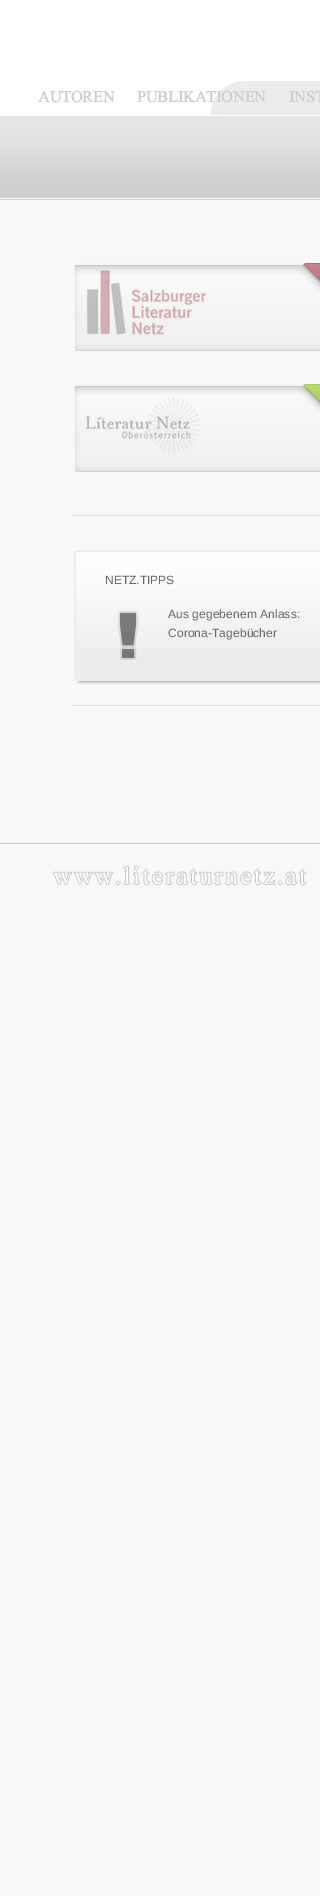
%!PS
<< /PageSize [320 1896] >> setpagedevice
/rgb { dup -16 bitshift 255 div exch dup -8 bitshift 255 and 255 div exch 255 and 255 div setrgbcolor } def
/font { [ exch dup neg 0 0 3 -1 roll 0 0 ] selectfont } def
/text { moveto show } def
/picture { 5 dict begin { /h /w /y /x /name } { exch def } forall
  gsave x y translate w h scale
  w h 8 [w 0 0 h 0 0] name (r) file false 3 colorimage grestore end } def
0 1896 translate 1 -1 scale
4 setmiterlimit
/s1 { /TimesNewRoman-Bold 16 font 16#CCCCCC rgb } def
/s2 { /LiberationSans-Regular 12 font 16#666666 rgb } def
16#F8F8F8 rgb
0 0 320 1896 rectfill
(pic1.raw) 0 0 320 200 picture
s1
(AUTOREN) 38 102 text
(PUBLIKATIONEN) 137 102 text
(INST) 289 102 text
(pic2.raw) 75 263 245 88 picture
(pic3.raw) 75 384 245 88 picture
(pic4.raw) 73 515 247 2 picture
(pic5.raw) 74 550 246 135 picture
s2
(NETZ.TIPPS) 105 584 text
(pic6.raw) 118 611 20 49 picture
168 618 moveto 0.1 0 (Aus gegebenem Anlass:) ashow
168 637 moveto 0.1 0 (Corona-Tagebücher) ashow
(pic4.raw) 73 705 247 2 picture
(pic7.raw) 0 843 320 2 picture
(pic8.raw) 52 865 255 21 picture
showpage
